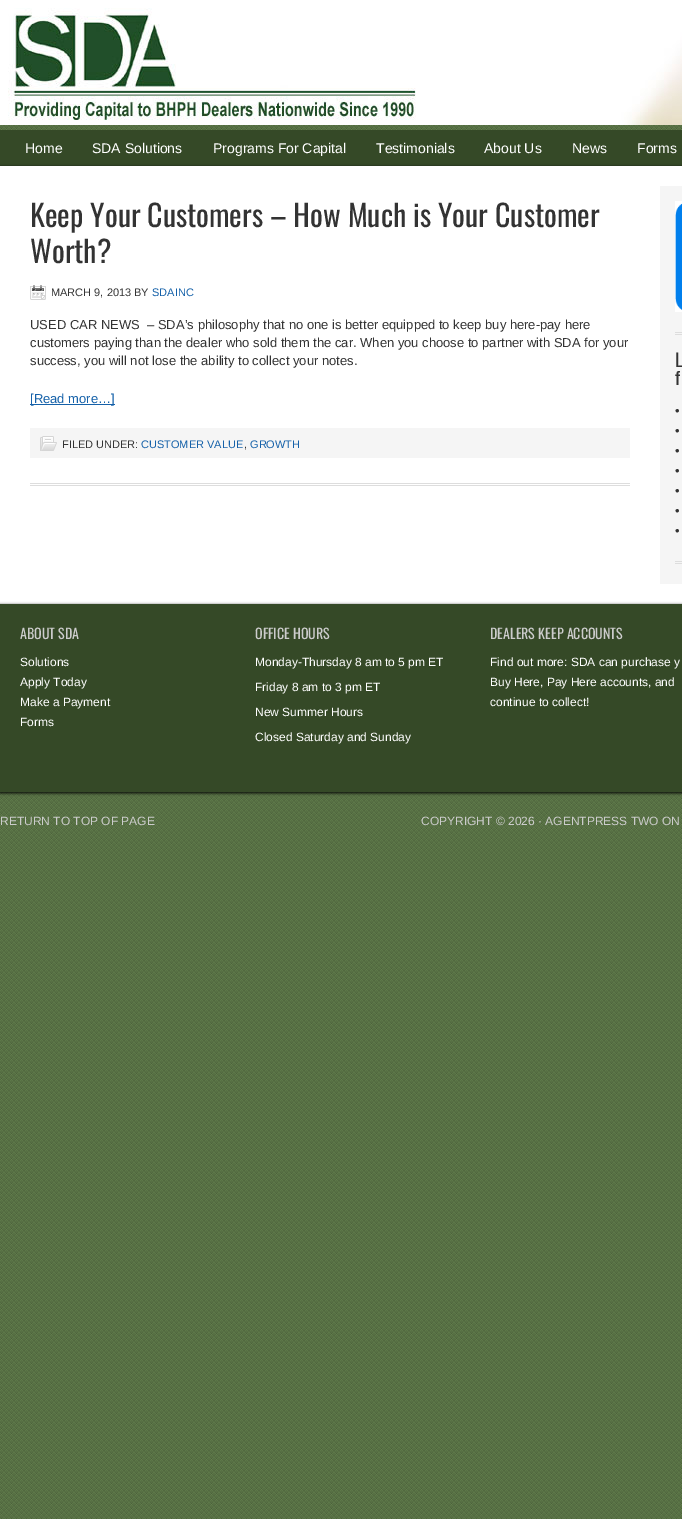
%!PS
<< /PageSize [682 1519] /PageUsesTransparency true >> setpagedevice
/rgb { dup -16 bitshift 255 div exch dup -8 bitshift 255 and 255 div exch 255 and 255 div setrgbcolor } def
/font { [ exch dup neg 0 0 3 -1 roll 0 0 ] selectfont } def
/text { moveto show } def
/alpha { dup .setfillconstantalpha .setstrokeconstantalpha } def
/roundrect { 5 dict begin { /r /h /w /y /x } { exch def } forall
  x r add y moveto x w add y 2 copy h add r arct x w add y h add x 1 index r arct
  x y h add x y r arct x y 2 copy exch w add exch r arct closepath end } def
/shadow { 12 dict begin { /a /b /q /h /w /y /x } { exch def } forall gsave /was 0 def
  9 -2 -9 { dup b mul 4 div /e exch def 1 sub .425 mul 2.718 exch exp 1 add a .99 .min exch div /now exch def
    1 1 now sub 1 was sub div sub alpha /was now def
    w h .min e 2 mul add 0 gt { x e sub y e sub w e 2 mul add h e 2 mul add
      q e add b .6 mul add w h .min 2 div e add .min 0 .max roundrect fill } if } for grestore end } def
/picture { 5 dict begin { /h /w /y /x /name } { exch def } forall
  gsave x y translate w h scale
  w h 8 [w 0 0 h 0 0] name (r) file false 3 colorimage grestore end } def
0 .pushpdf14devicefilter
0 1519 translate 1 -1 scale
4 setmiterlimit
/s1 { /LiberationSans-Regular 14 font 16#FFFFFF rgb } def
/s2 { /Oswald-Regular 30 font 16#333333 rgb } def
/s3 { /LiberationSans-Regular 11 font 16#333333 rgb } def
/s4 { /LiberationSans-Regular 11 font 16#1561A9 rgb } def
/s5 { /LiberationSans-Regular 13 font 16#333333 rgb } def
/s6 { /LiberationSans-Regular 13 font 16#1561A9 rgb } def
/s7 { /Oswald-Regular 18 font 16#333333 rgb } def
/s8 { /Oswald-Regular 14 font 16#CCCCCC rgb } def
/s9 { /LiberationSans-Regular 12 font 16#FFFFFF rgb } def
/s10 { /LiberationSans-Regular 12 font 16#CCCCCC rgb } def
16#FFFFFF rgb
0 0 682 1519 rectfill
(pic1.raw) 0 125 682 1394 picture
(pic2.raw) 0 0 682 125 picture
16#354927 rgb
0 130 682 36 rectfill
s1
(Home) 25 153 text
(SDA Solutions) 92 153 text
(Programs For Capital) 213 153 text
(Testimonials) 376 153 text
(About Us) 484 153 text
(News) 572 153 text
(Forms) 637 153 text
16#000000 rgb
0 167 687 438 0 1.5 1 shadow
16#FFFFFF rgb
0 166 682 438 rectfill
16#DDDDDD rgb
30 483 600 1 rectfill
30 485 600 1 rectfill
s2
(Keep Your Customers – How Much is Your Customer) 30 227 text
(Worth?) 30 263 text
(pic3.raw) 30 285 16 15 picture
s3
(MARCH 9, 2013 BY) 51 296 text
s4
(SDAINC) 152 296 text
s5
(USED CAR NEWS  – SDA’s philosophy that no one is better equipped to keep buy here-pay here) 30 329 text
(customers paying than the dealer who sold them the car. When you choose to partner with SDA for your) 30 347 text
(success, you will not lose the ability to collect your notes.) 30 365 text
16#1561A9 rgb
30 404 85 1 rectfill
([Read more…]) 30 403 text
16#F5F5F5 rgb
30 428 600 30 rectfill
(pic4.raw) 40 436 17 15 picture
s3
(FILED UNDER:) 62 448 text
s4
(CUSTOMER VALUE) 141 448 text
s3
(,) 244 448 text
s4
(GROWTH) 250 448 text
16#F5F5F5 rgb
660 186 22 398 rectfill
16#DDDDDD rgb
675 332 7 1 rectfill
675 334 7 1 rectfill
(pic5.raw) 675 201 7 111 picture
675 561 7 1 rectfill
675 563 7 1 rectfill
s7
(L) 675 367 text
(f) 675 385 text
s5
(•) 675 415 text
(•) 675 435 text
(•) 675 455 text
(•) 675 475 text
(•) 675 495 text
(•) 675 515 text
(•) 675 535 text
16#000000 rgb
0 605 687 188 0 1.5 1 shadow
16#354927 rgb
0 604 682 188 rectfill
s8
(ABOUT SDA) 20 639 text
s9
(Solutions) 20 666 text
(Apply Today) 20 686 text
(Make a Payment) 20 706 text
(Forms) 20 726 text
s8
(OFFICE HOURS) 255 639 text
s9
(Monday-Thursday 8 am to 5 pm ET) 255 666 text
(Friday 8 am to 3 pm ET) 255 691 text
(New Summer Hours) 255 716 text
(Closed Saturday and Sunday) 255 741 text
s8
(DEALERS KEEP ACCOUNTS) 490 639 text
s9
(Find out more: SDA can purchase y) 490 666 text
(Buy Here, Pay Here accounts, and) 490 686 text
(continue to collect!) 490 706 text
s10
(RETURN TO TOP OF PAGE) 0 825 text
(COPYRIGHT © 2026 · AGENTPRESS TWO ON) 421 825 text
.poppdf14devicefilter showpage
